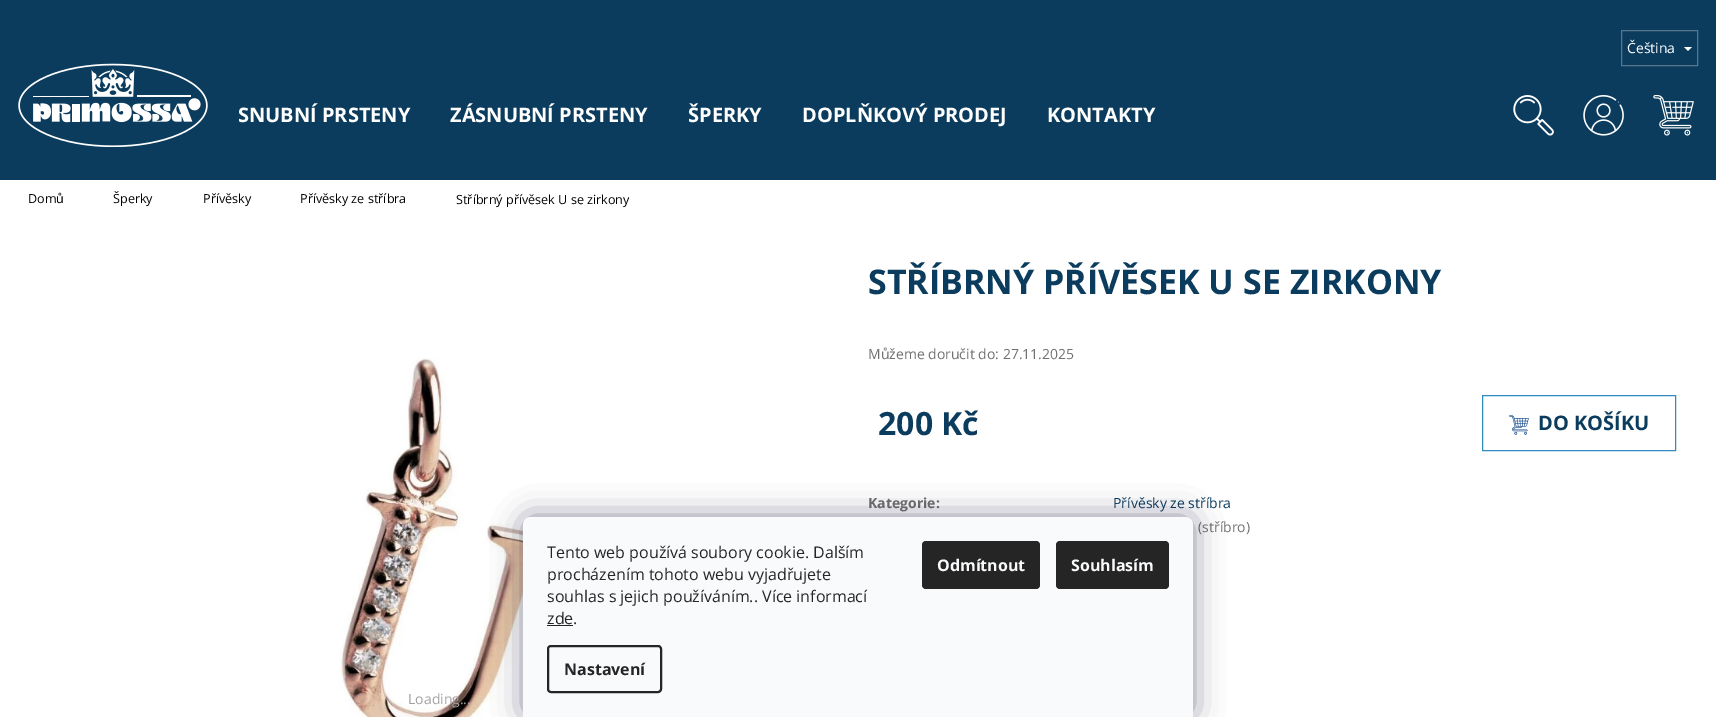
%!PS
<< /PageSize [1716 717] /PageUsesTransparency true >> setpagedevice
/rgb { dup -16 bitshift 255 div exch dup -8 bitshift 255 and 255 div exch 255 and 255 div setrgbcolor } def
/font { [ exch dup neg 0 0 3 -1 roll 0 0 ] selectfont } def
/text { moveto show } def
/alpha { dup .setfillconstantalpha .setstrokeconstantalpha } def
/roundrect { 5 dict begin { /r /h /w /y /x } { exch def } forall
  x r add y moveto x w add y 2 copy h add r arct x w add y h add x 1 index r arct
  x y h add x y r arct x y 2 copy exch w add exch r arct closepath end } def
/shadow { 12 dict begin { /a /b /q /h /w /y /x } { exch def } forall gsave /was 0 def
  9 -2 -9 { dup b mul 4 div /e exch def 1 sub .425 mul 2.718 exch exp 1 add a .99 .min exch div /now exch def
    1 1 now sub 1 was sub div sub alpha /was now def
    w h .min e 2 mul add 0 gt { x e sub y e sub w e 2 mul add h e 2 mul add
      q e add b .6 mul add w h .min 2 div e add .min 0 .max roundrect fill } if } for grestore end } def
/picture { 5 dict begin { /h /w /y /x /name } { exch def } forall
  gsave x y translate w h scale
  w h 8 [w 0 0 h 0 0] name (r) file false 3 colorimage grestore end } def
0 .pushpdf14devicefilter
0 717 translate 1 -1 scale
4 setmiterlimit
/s1 { /OpenSans-Regular 14 font 16#FFFFFF rgb } def
/s2 { /OpenSans-Bold 20 font 16#FFFFFF rgb } def
/s3 { /OpenSans-Regular 12.6 font 16#000000 rgb } def
/s4 { /OpenSans-Bold 34 font 16#0B3C5D rgb } def
/s5 { /OpenSans-Regular 14 font 16#707070 rgb } def
/s6 { /OpenSans-Bold 32 font 16#0B3C5D rgb } def
/s7 { /OpenSans-Bold 20 font 16#0B3C5D rgb } def
/s8 { /OpenSans-Bold 14 font 16#707070 rgb } def
/s9 { /OpenSans-Regular 14 font 16#0B3C5D rgb } def
/s10 { /OpenSans-Regular 14 font 16#A4A2A1 rgb } def
/s11 { /OpenSans-Regular 16 font 16#252525 rgb } def
/s12 { /OpenSans-Bold 16 font 16#252525 rgb } def
/s13 { /OpenSans-Bold 16 font 16#F8FAFB rgb } def
16#FFFFFF rgb
0 0 1716 717 rectfill
16#0B3C5D rgb
0 0 1716 180 rectfill
16#54778E rgb
1621.5 30.5 76 35 rectstroke
s1
(Čeština) 1627 53 text
1684 47 moveto 1692 47 lineto 1688 51 lineto closepath fill
(pic1.raw) 1513 95 41 41 picture
(pic2.raw) 1583 95 41 41 picture
(pic3.raw) 1653 95 41 41 picture
(pic4.raw) 18 63 190 84 picture
s2
(SNUBNÍ PRSTENY) 238 122 text
(ZÁSNUBNÍ PRSTENY) 450 122 text
(ŠPERKY) 688 122 text
(DOPLŇKOVÝ PRODEJ) 802 122 text
(KONTAKTY) 1047 122 text
s3
(Domů) 28 203 text
(Šperky) 113 203 text
(Přívěsky) 203 203 text
(Přívěsky ze stříbra) 300 203 text
(Stříbrný přívěsek U se zirkony) 456 204 text
s4
(STŘÍBRNÝ PŘÍVĚSEK U SE ZIRKONY) 868 294 text
s5
(Můžeme doručit do: 27.11.2025) 868 359 text
s6
(200 Kč) 878 435 text
16#328CC1 rgb
1482.5 395.5 193 55 rectstroke
(pic5.raw) 1509 415 20 20 picture
s7
(DO KOŠÍKU) 1538 430 text
s8
(Kategorie:) 868 508 text
s9
(Přívěsky ze stříbra) 1113 508 text
s5
(\(stříbro\)) 1198 532 text
(pic6.raw) 339 358 225 359 picture
s10
(Loading...) 408 704 text
16#1B1939 rgb
523 517 670 200 8 15 0.5 shadow
16#F8FAFB rgb
531 517 moveto 1185 517 lineto 1189.5 517 1193 520.5 1193 525 curveto 1193 717 lineto 523 717 lineto 523 525 lineto 523 520.5 526.5 517 531 517 curveto closepath fill
s11
(Tento web používá soubory cookie. Dalším) 547 558 text
(procházením tohoto webu vyjadřujete) 547 580 text
(souhlas s jejich používáním.. Více informací) 547 602 text
(zde.) 547 624 text
547 625 26 1 rectfill
2 setlinewidth
548 646 113 46 3 roundrect stroke
s12
(Nastavení) 564 675 text
922 541 118 48 4 roundrect fill
s13
(Odmítnout) 937 571 text
16#252525 rgb
1056 541 113 48 4 roundrect fill
s13
(Souhlasím) 1071 571 text
.poppdf14devicefilter showpage
